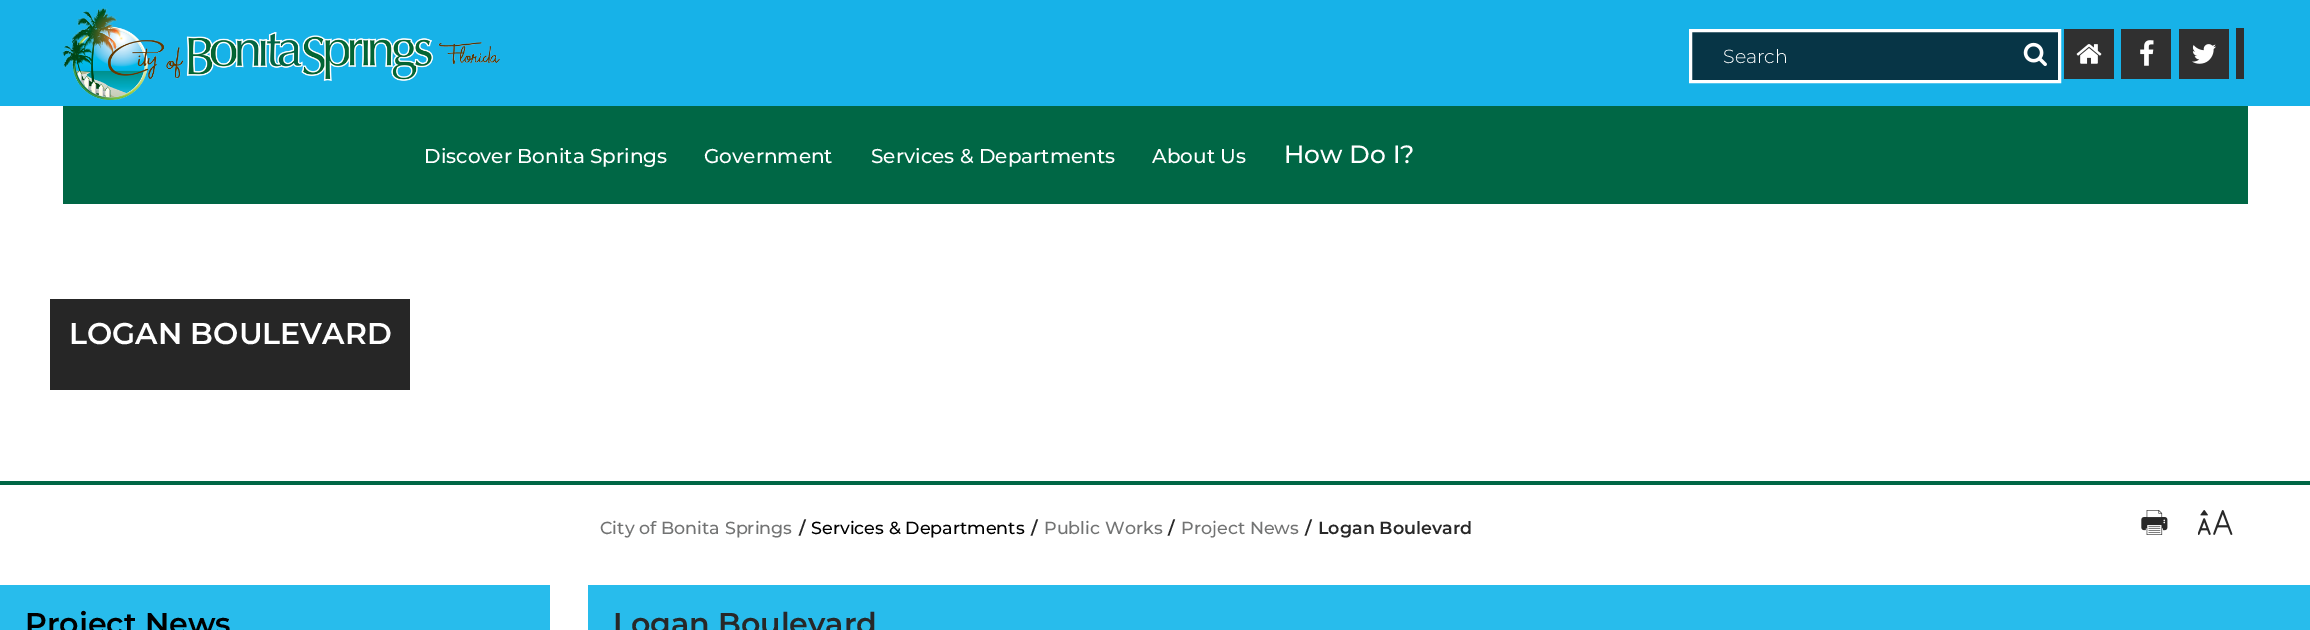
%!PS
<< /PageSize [2310 630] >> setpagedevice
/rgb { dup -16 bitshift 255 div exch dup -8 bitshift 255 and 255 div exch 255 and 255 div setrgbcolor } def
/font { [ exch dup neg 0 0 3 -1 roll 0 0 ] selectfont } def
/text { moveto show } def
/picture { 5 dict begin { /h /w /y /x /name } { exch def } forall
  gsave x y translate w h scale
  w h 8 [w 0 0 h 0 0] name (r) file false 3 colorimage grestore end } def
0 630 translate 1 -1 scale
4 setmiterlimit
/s1 { /Montserrat-Light 19 font 16#FFFFFF rgb } def
/s2 { /Montserrat-Medium 20 font 16#FFFFFF rgb } def
/s3 { /Montserrat-Medium 25 font 16#FFFFFF rgb } def
/s4 { /Montserrat-SemiBold 30 font 16#FFFFFF rgb } def
/s5 { /Montserrat-SemiBold 30 font 16#000000 rgb } def
/s6 { /Montserrat-Medium 17.5 font 16#727373 rgb } def
/s7 { /Montserrat-SemiBold 17.5 font 16#282828 rgb } def
/s8 { /Montserrat-Medium 17.5 font 16#000000 rgb } def
/s9 { /Montserrat-SemiBold 30 font 16#282828 rgb } def
16#FFFFFF rgb
0 0 2310 630 rectfill
16#17B2E8 rgb
0 0 2310 106 rectfill
16#073546 rgb
1690.5 30.5 moveto 2059.5 30.5 lineto 2059.5 81.5 lineto 1690.5 81.5 lineto closepath gsave fill grestore
16#FFFFFF rgb
3 setlinewidth
stroke
s1
(Search) 1723 63 text
(pic1.raw) 2023 42 24 25 picture
16#303030 rgb
2064 29 50 50 rectfill
(pic2.raw) 2076 44 26 20 picture
2121 29 50 50 rectfill
(pic3.raw) 2140 40 14 26 picture
2179 29 50 50 rectfill
(pic4.raw) 2192 44 24 20 picture
2236 28 8 51 rectfill
(pic5.raw) 62 7 438 93 picture
16#006745 rgb
63 106 2185 98 rectfill
s2
(Discover Bonita Springs) 424 163 text
(Government) 704 163 text
(Services & Departments) 871 163 text
(About Us) 1152 163 text
s3
(How Do I?) 1284 163 text
16#006745 rgb
0 481 2310 4 rectfill
16#262626 rgb
50 299 360 91 rectfill
s4
(LOGAN BOULEVARD) 69 344 text
16#28BCEC rgb
0 585 550 45 rectfill
s5
(Project News) 25 634 text
s6
(City of Bonita Springs) 600 534 text
s7
(/) 799 534 text
s8
(Services & Departments) 811 534 text
s7
(/) 1031 534 text
s6
(Public Works) 1044 534 text
s7
(/) 1168 534 text
s6
(Project News) 1181 534 text
s7
(/) 1305 534 text
(Logan Boulevard) 1318 534 text
(pic6.raw) 2141 510 27 25 picture
(pic7.raw) 2198 510 35 25 picture
16#28BCEC rgb
588 585 1722 45 rectfill
s9
(Logan Boulevard) 613 634 text
showpage
